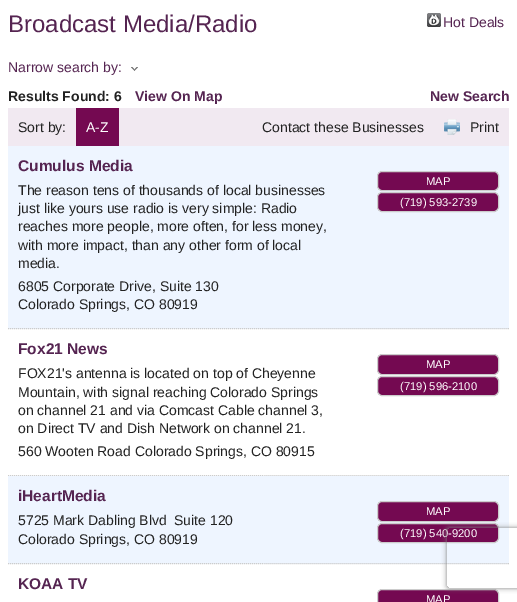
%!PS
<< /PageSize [517 602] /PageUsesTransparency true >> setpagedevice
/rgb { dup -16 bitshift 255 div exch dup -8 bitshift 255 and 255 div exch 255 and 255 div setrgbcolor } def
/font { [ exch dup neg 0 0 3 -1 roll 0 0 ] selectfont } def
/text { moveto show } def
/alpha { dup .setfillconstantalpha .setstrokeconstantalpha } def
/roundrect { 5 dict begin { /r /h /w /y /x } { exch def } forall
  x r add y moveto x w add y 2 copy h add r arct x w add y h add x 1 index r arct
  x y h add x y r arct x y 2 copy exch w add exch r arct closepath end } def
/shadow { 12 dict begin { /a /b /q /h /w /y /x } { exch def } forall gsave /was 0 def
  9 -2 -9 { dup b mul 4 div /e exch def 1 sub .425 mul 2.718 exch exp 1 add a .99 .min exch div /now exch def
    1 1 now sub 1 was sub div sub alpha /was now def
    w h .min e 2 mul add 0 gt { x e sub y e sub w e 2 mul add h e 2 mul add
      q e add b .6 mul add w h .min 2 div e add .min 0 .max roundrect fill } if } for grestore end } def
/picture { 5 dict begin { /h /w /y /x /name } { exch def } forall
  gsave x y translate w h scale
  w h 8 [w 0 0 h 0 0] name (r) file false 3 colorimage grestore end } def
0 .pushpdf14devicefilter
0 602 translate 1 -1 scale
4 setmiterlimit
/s1 { /LiberationSans-Regular 24 font 16#552451 rgb } def
/s2 { /LiberationSans-Regular 14 font 16#552451 rgb } def
/s3 { /LiberationSans-Bold 14 font 16#222222 rgb } def
/s4 { /LiberationSans-Bold 14 font 16#552451 rgb } def
/s5 { /LiberationSans-Regular 14 font 16#222222 rgb } def
/s6 { /LiberationSans-Regular 14 font 16#FFFFFF rgb } def
/s7 { /LiberationSans-Bold 15.5 font 16#552451 rgb } def
/s8 { /LiberationSans-Regular 11.25 font 16#FFFFFF rgb } def
16#FFFFFF rgb
0 0 517 602 rectfill
s1
(Broadcast Media/Radio) 8 32 text
(pic1.raw) 427 13 14 14 picture
s2
(Hot Deals) 443 27 text
(Narrow search by:) 8 72 text
(pic2.raw) 131 67 7 4 picture
s3
(Results Found: 6) 8 101 text
s4
(View On Map) 135 101 text
(New Search) 430 101 text
16#F1E9F1 rgb
8 108 501 38 rectfill
s5
(Sort by:) 18 132 text
16#740951 rgb
76 108 43 38 rectfill
s6
(A-Z) 86 132 text
s5
(Contact these Businesses) 262 132 text
(pic3.raw) 444 119 16 16 picture
(Print) 470 132 text
16#EEF5FF rgb
8 146 501 183 rectfill
16#CCCCCC rgb
[1 1] 0 setdash
8 328.5 moveto 509 328.5 lineto stroke
s7
(Cumulus Media) 18 171 text
s5
(The reason tens of thousands of local businesses) 18 195 text
(just like yours use radio is very simple: Radio) 18 213 text
(reaches more people, more often, for less money,) 18 231 text
(with more impact, than any other form of local) 18 250 text
(media.) 18 268 text
(6805 Corporate Drive, Suite 130) 18 291 text
(Colorado Springs, CO 80919) 18 309 text
16#740951 rgb
377.5 171.5 121 19 4.5 roundrect gsave fill grestore
16#CCCCCC rgb
[] 0 setdash
stroke
s8
(MAP) 426 185 text
16#740951 rgb
377.5 192.5 121 19 4.5 roundrect gsave fill grestore
16#CCCCCC rgb
stroke
s8
(\(719\) 593-2739) 400 206 text
16#CCCCCC rgb
[1 1] 0 setdash
8 475.5 moveto 509 475.5 lineto stroke
s7
(Fox21 News) 18 354 text
s5
(FOX21's antenna is located on top of Cheyenne) 18 378 text
(Mountain, with signal reaching Colorado Springs) 18 397 text
(on channel 21 and via Comcast Cable channel 3,) 18 415 text
(on Direct TV and Dish Network on channel 21.) 18 433 text
(560 Wooten Road Colorado Springs, CO 80915) 18 456 text
16#740951 rgb
377.5 354.5 121 20 4.5 roundrect gsave fill grestore
16#CCCCCC rgb
[] 0 setdash
stroke
s8
(MAP) 426 368 text
16#740951 rgb
377.5 376.5 121 19 4.5 roundrect gsave fill grestore
16#CCCCCC rgb
stroke
s8
(\(719\) 596-2100) 400 390 text
16#EEF5FF rgb
8 476 501 88 rectfill
16#CCCCCC rgb
[1 1] 0 setdash
8 563.5 moveto 509 563.5 lineto stroke
s7
(iHeartMedia) 18 501 text
s5
(5725 Mark Dabling Blvd) 18 525 text
(Suite 120) 174 525 text
(Colorado Springs, CO 80919) 18 544 text
16#740951 rgb
377.5 501.5 121 20 4.5 roundrect gsave fill grestore
16#CCCCCC rgb
[] 0 setdash
stroke
s8
(MAP) 426 515 text
16#740951 rgb
377.5 523.5 121 19 4.5 roundrect gsave fill grestore
16#CCCCCC rgb
stroke
s8
(\(719\) 540-9200) 400 537 text
s7
(KOAA TV) 18 589 text
16#740951 rgb
377.5 589.5 121 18 4.5 roundrect gsave fill grestore
16#CCCCCC rgb
stroke
s8
(MAP) 426 603 text
gsave
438 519 moveto 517 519 lineto 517 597 lineto 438 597 lineto closepath 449 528 moveto 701 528 lineto 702 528 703 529 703 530 curveto 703 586 lineto 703 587 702 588 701 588 curveto 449 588 lineto 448 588 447 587 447 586 curveto 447 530 lineto 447 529 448 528 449 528 curveto closepath eoclip newpath
16#808080 rgb
447 528 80 60 2 2.5 1 shadow
grestore
.poppdf14devicefilter showpage
